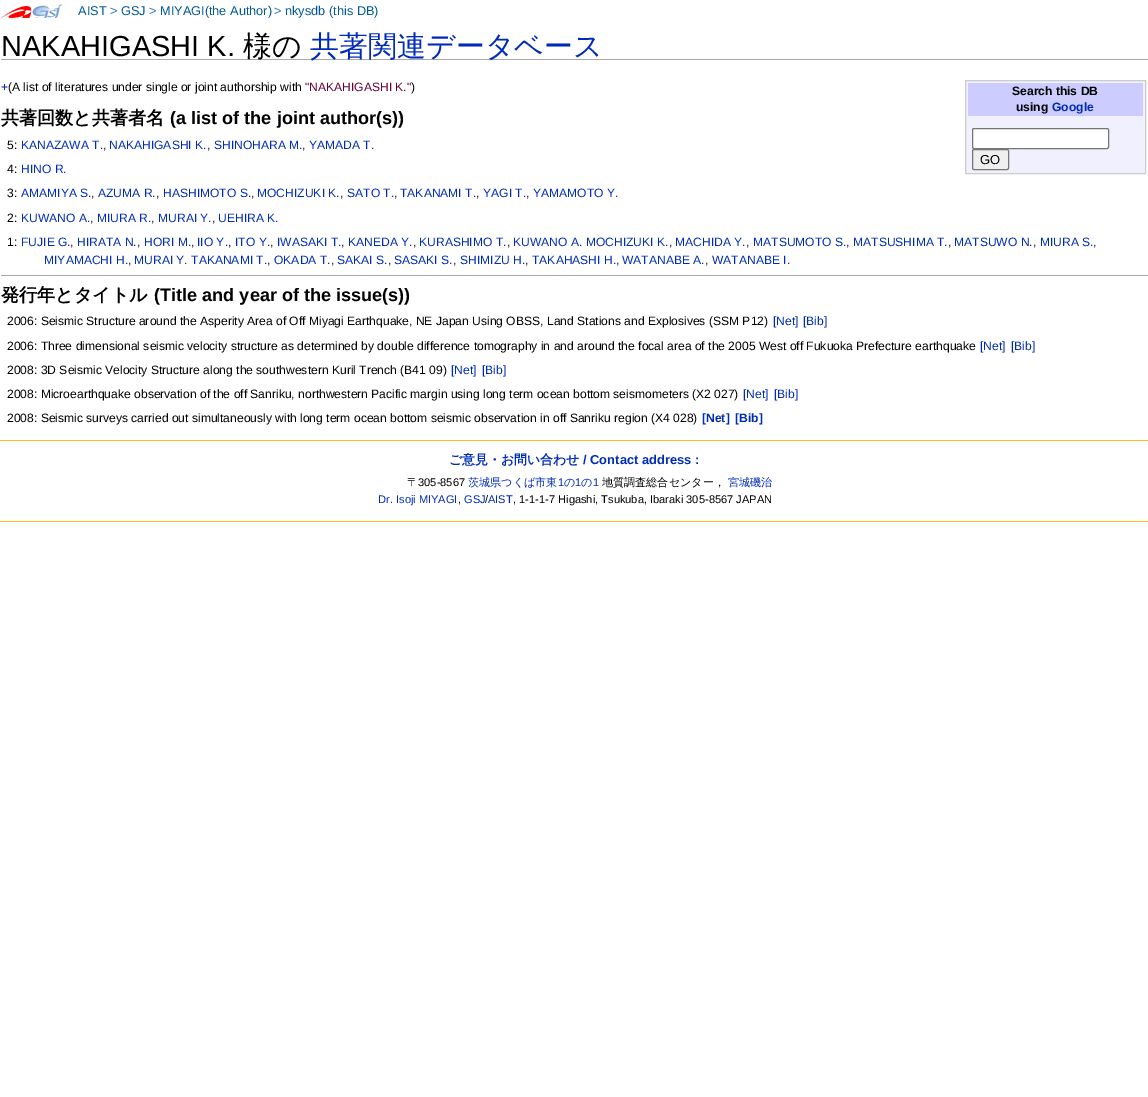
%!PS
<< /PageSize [1148 1097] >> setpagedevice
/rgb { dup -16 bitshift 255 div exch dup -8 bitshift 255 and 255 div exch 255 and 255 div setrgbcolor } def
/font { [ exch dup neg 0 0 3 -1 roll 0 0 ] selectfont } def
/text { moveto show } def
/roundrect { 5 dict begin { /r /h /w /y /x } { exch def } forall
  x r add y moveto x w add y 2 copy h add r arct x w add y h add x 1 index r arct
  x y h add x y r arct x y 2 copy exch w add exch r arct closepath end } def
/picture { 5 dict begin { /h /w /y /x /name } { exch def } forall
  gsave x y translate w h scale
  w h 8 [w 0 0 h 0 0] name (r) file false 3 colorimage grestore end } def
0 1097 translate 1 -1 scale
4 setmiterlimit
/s1 { /LiberationSans-Regular 12.75 font 16#005896 rgb } def
/s2 { /LiberationSans-Regular 12.75 font 16#2F6FAB rgb } def
/s3 { /LiberationSans-Regular 29 font 16#000000 rgb } def
/s4 { /WenQuanYiZenHei-Medium 29 font 16#000000 rgb } def
/s5 { /WenQuanYiZenHei-Medium 29 font 16#002BB8 rgb } def
/s6 { /LiberationSans-Regular 12.1 font 16#002BB8 rgb } def
/s7 { /LiberationSans-Regular 12.1 font 16#000000 rgb } def
/s8 { /LiberationSans-Regular 12.1 font 16#660033 rgb } def
/s9 { /LiberationSans-Bold 12.1 font 16#000000 rgb } def
/s10 { /LiberationSans-Bold 12.1 font 16#002BB8 rgb } def
/s11 { /LiberationSans-Regular 13 font 16#000000 rgb } def
/s12 { /WenQuanYiZenHei-Bold 18.1 font 16#000000 rgb } def
/s13 { /LiberationSans-Bold 18.1 font 16#000000 rgb } def
/s14 { /WenQuanYiZenHei-Bold 12.9 font 16#002BB8 rgb } def
/s15 { /LiberationSans-Bold 12.9 font 16#002BB8 rgb } def
/s16 { /WenQuanYiZenHei-Medium 11.1 font 16#000000 rgb } def
/s17 { /LiberationSans-Regular 11.1 font 16#000000 rgb } def
/s18 { /WenQuanYiZenHei-Medium 11.1 font 16#002BB8 rgb } def
/s19 { /LiberationSans-Regular 11.1 font 16#002BB8 rgb } def
16#FFFFFF rgb
0 0 1148 1097 rectfill
(pic1.raw) 1 4 61 14 picture
s1
(AIST) 78 15 text
s2
(>) 110 15 text
s1
(GSJ) 121 15 text
s2
(>) 149 15 text
s1
(MIYAGI\(the Author\)) 160 15 text
s2
(>) 274 15 text
s1
(nkysdb \(this DB\)) 285 15 text
16#AAAAAA rgb
1 59 1147 1 rectfill
s3
(NAKAHIGASHI K.) 1 56 text
s4
(様の) 243 56 text
s5
(共著関連データベース) 310 56 text
s6
(+) 1 91 text
s7
(\(A list of literatures under single or joint authorship with) 8 91 text
s8
("NAKAHIGASHI K.") 305 91 text
s7
(\)) 411 91 text
16#F0F0FF rgb
965.5 80.5 moveto 1145.5 80.5 lineto 1145.5 173.5 lineto 965.5 173.5 lineto closepath gsave fill grestore
16#CCCCCC rgb
stroke
16#CCCCFF rgb
968 83 175 33 rectfill
s9
(Search this DB) 1012 95 text
(using) 1016 111 text
s10
(Google) 1052 111 text
16#FFFFFF rgb
972.5 128.5 136 20 1.5 roundrect gsave fill grestore
16#767676 rgb
stroke
16#EFEFEF rgb
972.5 149.5 36 20 1.5 roundrect gsave fill grestore
16#767676 rgb
stroke
s11
(GO) 980 164 text
s12
(共著回数と共著者名) 1 124 text
s13
(\(a list of the joint author\(s\)\)) 170 124 text
s7
(5:) 7 149 text
s6
(KANAZAWA T.) 21 149 text
s7
(,) 103 149 text
s6
(NAKAHIGASHI K.) 109 149 text
s7
(,) 207 149 text
s6
(SHINOHARA M.) 214 149 text
s7
(,) 302 149 text
s6
(YAMADA T.) 309 149 text
s7
(4:) 7 173 text
s6
(HINO R.) 21 173 text
s7
(3:) 7 197 text
s6
(AMAMIYA S.) 21 197 text
s7
(,) 91 197 text
s6
(AZUMA R.) 98 197 text
s7
(,) 156 197 text
s6
(HASHIMOTO S.) 163 197 text
s7
(,) 251 197 text
s6
(MOCHIZUKI K.) 257 197 text
s7
(,) 340 197 text
s6
(SATO T.) 347 197 text
s7
(,) 394 197 text
s6
(TAKANAMI T.) 400 197 text
s7
(,) 476 197 text
s6
(YAGI T.) 483 197 text
s7
(,) 526 197 text
s6
(YAMAMOTO Y.) 533 197 text
s7
(2:) 7 222 text
s6
(KUWANO A.) 21 222 text
s7
(,) 90 222 text
s6
(MIURA R.) 97 222 text
s7
(,) 151 222 text
s6
(MURAI Y.) 158 222 text
s7
(,) 212 222 text
s6
(UEHIRA K.) 218 222 text
s7
(1:) 7 246 text
s6
(FUJIE G.) 21 246 text
s7
(,) 70 246 text
s6
(HIRATA N.) 77 246 text
s7
(,) 137 246 text
s6
(HORI M.) 144 246 text
s7
(,) 191 246 text
s6
(IIO Y.) 197 246 text
s7
(,) 228 246 text
s6
(ITO Y.) 235 246 text
s7
(,) 270 246 text
s6
(IWASAKI T.) 277 246 text
s7
(,) 341 246 text
s6
(KANEDA Y.) 348 246 text
s7
(,) 413 246 text
s6
(KURASHIMO T.) 419 246 text
s7
(,) 507 246 text
s6
(KUWANO A. MOCHIZUKI K.) 513 246 text
s7
(,) 669 246 text
s6
(MACHIDA Y.) 675 246 text
s7
(,) 746 246 text
s6
(MATSUMOTO S.) 753 246 text
s7
(,) 846 246 text
s6
(MATSUSHIMA T.) 853 246 text
s7
(,) 948 246 text
s6
(MATSUWO N.) 954 246 text
s7
(,) 1033 246 text
s6
(MIURA S.) 1040 246 text
s7
(,) 1093 246 text
s6
(MIYAMACHI H.) 44 264 text
s7
(,) 128 264 text
s6
(MURAI Y. TAKANAMI T.) 134 264 text
s7
(,) 267 264 text
s6
(OKADA T.) 274 264 text
s7
(,) 331 264 text
s6
(SAKAI S.) 337 264 text
s7
(,) 388 264 text
s6
(SASAKI S.) 394 264 text
s7
(,) 453 264 text
s6
(SHIMIZU H.) 460 264 text
s7
(,) 525 264 text
s6
(TAKAHASHI H.) 532 264 text
s7
(,) 616 264 text
s6
(WATANABE A.) 622 264 text
s7
(,) 705 264 text
s6
(WATANABE I.) 712 264 text
16#AAAAAA rgb
1 275 1147 1 rectfill
s12
(発行年とタイトル) 1 301 text
s13
(\(Title and year of the issue\(s\)\)) 154 301 text
s7
(2006: Seismic Structure around the Asperity Area of Off Miyagi Earthquake, NE Japan Using OBSS, Land Stations and Explosives \(SSM P12\)) 7 325 text
s6
([Net]) 773 325 text
([Bib]) 803 325 text
s7
(2006: Three dimensional seismic velocity structure as determined by double difference tomography in and around the focal area of the 2005 West off Fukuoka Prefecture earthquake) 7 350 text
s6
([Net]) 980 350 text
([Bib]) 1011 350 text
s7
(2008: 3D Seismic Velocity Structure along the southwestern Kuril Trench \(B41 09\)) 7 374 text
s6
([Net]) 451 374 text
([Bib]) 482 374 text
s7
(2008: Microearthquake observation of the off Sanriku, northwestern Pacific margin using long term ocean bottom seismometers \(X2 027\)) 7 398 text
s6
([Net]) 743 398 text
([Bib]) 774 398 text
s7
(2008: Seismic surveys carried out simultaneously with long term ocean bottom seismic observation in off Sanriku region \(X4 028\)) 7 422 text
s10
([Net]) 702 422 text
([Bib]) 735 422 text
16#FABD23 rgb
0 440 1148 1 rectfill
0 521 1148 1 rectfill
s14
(ご意見・お問い合わせ) 449 464 text
s15
(/ Contact address :) 583 464 text
s16
(〒) 407 486 text
s17
(305-8567) 418 486 text
s18
(茨城県つくば市東) 468 486 text
s19
(1) 558 486 text
s18
(の) 564 486 text
s19
(1) 575 486 text
s18
(の) 581 486 text
s19
(1) 593 486 text
s16
(地質調査総合センター，) 602 486 text
s18
(宮城磯治) 728 486 text
s19
(Dr. Isoji MIYAGI) 378 503 text
s17
(,) 458 503 text
s19
(GSJ) 464 503 text
s17
(/) 485 503 text
s19
(AIST) 488 503 text
s17
(, 1-1-1-7 Higashi, Tsukuba, Ibaraki 305-8567 JAPAN) 513 503 text
showpage
